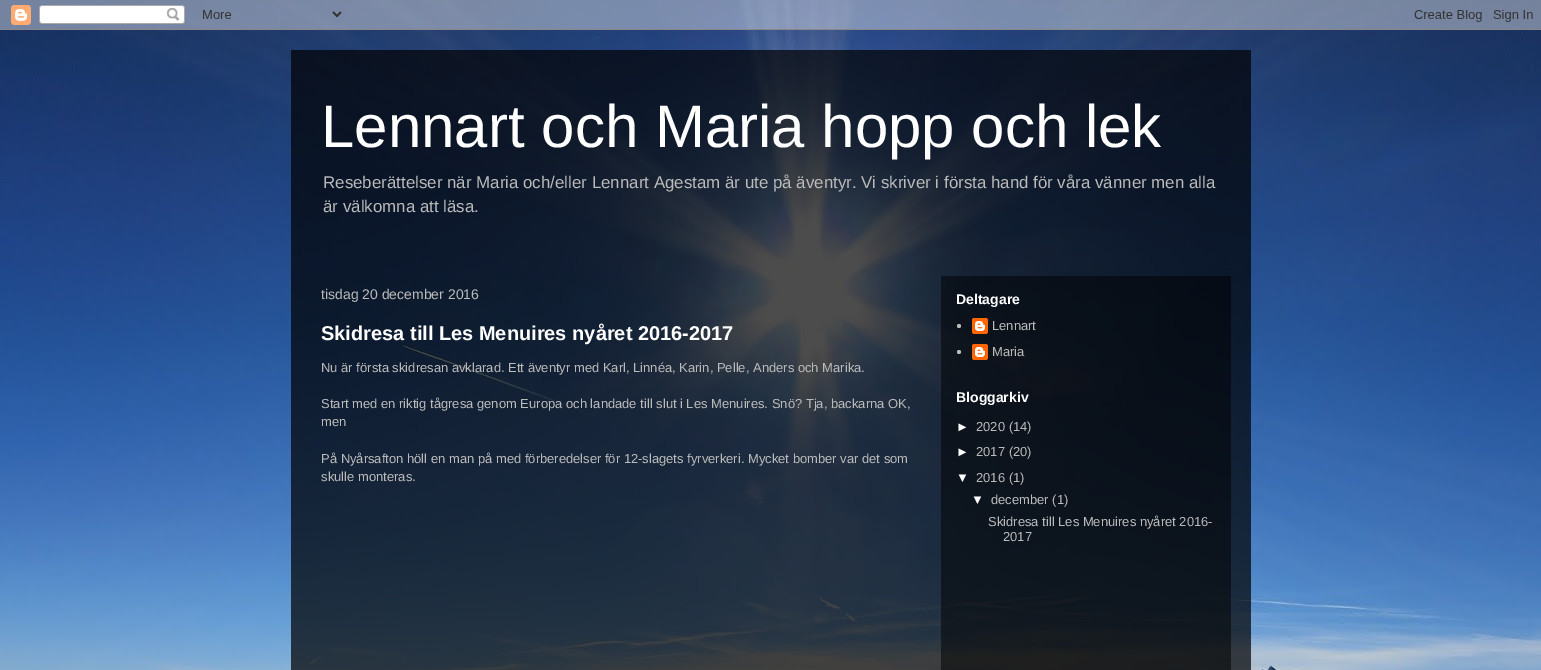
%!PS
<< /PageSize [1541 670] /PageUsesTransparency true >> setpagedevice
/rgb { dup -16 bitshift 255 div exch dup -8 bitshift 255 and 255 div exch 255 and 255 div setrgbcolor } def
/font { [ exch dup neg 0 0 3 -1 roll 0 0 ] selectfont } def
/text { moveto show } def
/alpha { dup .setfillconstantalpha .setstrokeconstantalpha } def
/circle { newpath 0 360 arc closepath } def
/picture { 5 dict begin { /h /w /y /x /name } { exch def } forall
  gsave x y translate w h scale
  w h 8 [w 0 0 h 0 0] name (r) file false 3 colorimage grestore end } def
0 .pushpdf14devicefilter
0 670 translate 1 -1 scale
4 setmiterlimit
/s1 { /LiberationSans-Regular 60 font 16#FFFFFF rgb } def
/s2 { /LiberationSans-Regular 16.9 font 16#BBBBBB rgb } def
/s3 { /LiberationSans-Regular 14 font 16#BBBBBB rgb } def
/s4 { /LiberationSans-Bold 20 font 16#FFFFFF rgb } def
/s5 { /LiberationSans-Regular 13 font 16#BBBBBB rgb } def
/s6 { /LiberationSans-Bold 14 font 16#FFFFFF rgb } def
/s7 { /LiberationSans-Regular 13 font 16#FFFFFF rgb } def
16#FFFFFF rgb
0 0 1541 670 rectfill
(pic1.raw) 0 0 1541 670 picture
(pic2.raw) 0 0 1541 30 picture
0.7 alpha
16#000000 rgb
291 50 960 620 rectfill
1 alpha
s1
(Lennart och Maria hopp och lek) 321 147 text
s2
(Reseberättelser när Maria och/eller Lennart Agestam är ute på äventyr. Vi skriver i första hand för våra vänner men alla) 323 188 text
(är välkomna att läsa.) 323 212 text
0.5 alpha
16#000000 rgb
941 276 290 394 rectfill
1 alpha
s3
(tisdag 20 december 2016) 321 299 text
s4
(Skidresa till Les Menuires nyåret 2016-2017) 321 340 text
s5
(Nu är första skidresan avklarad. Ett äventyr med Karl, Linnéa, Karin, Pelle, Anders och Marika.) 321 372 text
(Start med en riktig tågresa genom Europa och landade till slut i Les Menuires. Snö? Tja, backarna OK,) 321 408 text
(men) 321 426 text
(På Nyårsafton höll en man på med förberedelser för 12-slagets fyrverkeri. Mycket bomber var det som) 321 463 text
(skulle monteras.) 321 481 text
s6
(Deltagare) 956 304 text
16#BBBBBB rgb
959 326 2 circle fill
(pic3.raw) 972 318 16 16 picture
s5
(Lennart) 992 330 text
959 352 2 circle fill
(pic4.raw) 972 344 16 16 picture
(Maria) 992 356 text
s6
(Bloggarkiv) 956 402 text
s7
(►) 956 431 text
s5
(2020 \(14\)) 976 431 text
s7
(►) 956 456 text
s5
(2017 \(20\)) 976 456 text
s7
(▼) 956 482 text
s5
(2016 \(1\)) 976 482 text
s7
(▼) 971 504 text
s5
(december \(1\)) 991 504 text
(Skidresa till Les Menuires nyåret 2016-) 988 526 text
(2017) 1003 541 text
.poppdf14devicefilter showpage
